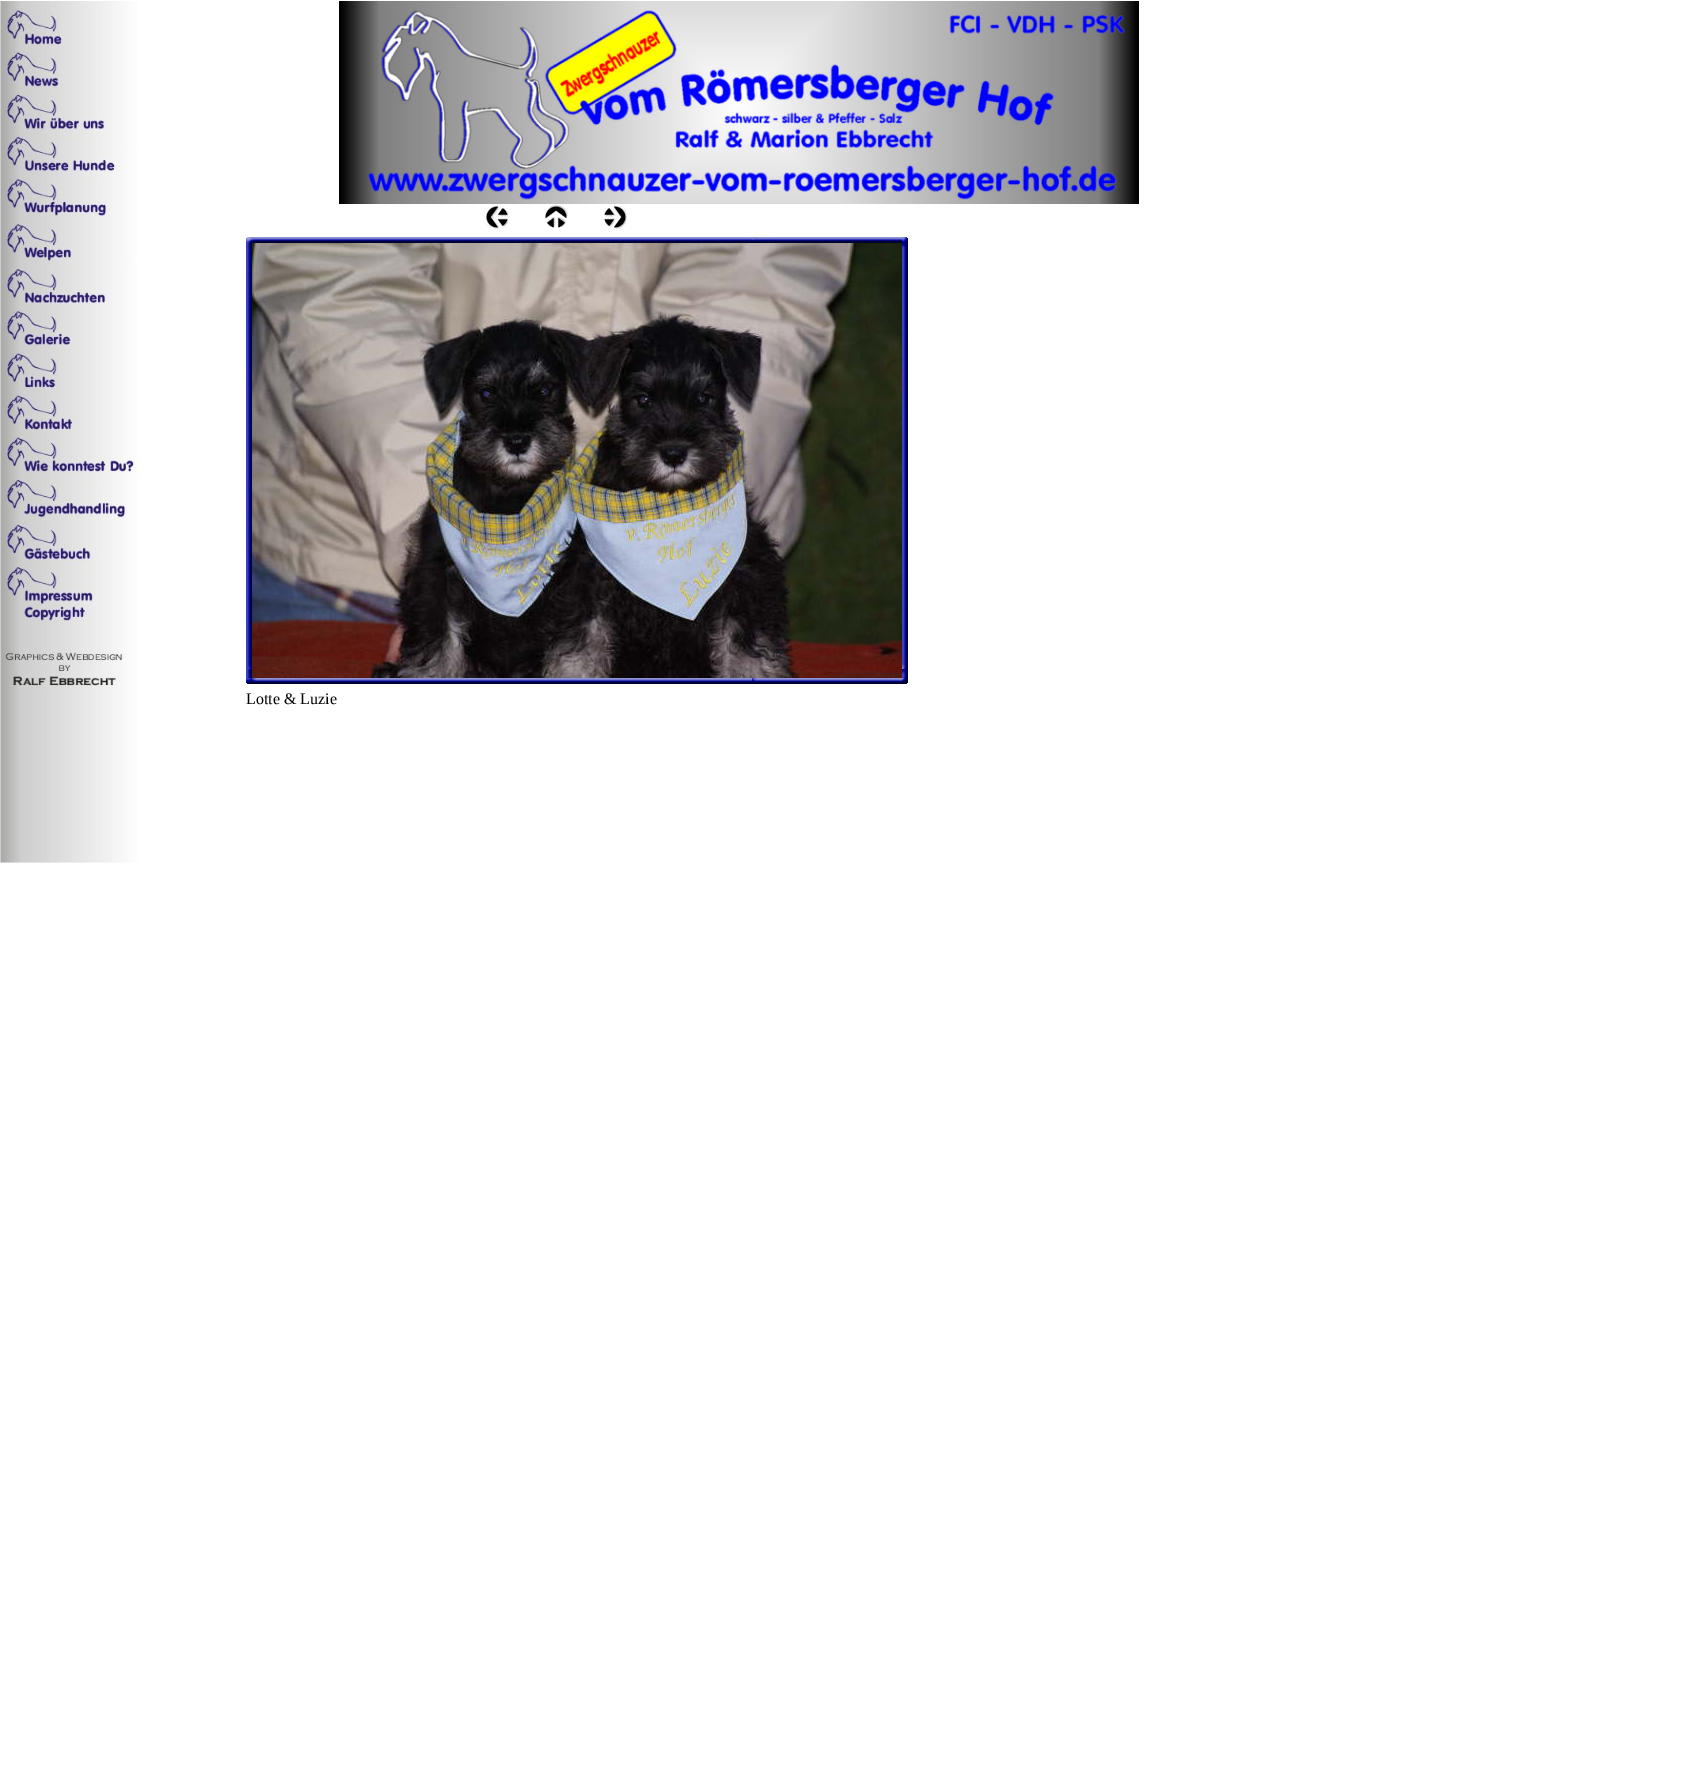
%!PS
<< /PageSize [1703 1778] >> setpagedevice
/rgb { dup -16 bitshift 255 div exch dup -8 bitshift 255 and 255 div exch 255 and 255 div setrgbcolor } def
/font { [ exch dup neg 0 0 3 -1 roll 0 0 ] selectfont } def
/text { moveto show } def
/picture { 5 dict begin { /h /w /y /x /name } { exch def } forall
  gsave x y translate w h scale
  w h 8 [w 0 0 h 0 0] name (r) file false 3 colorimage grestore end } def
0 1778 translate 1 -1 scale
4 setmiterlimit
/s1 { /LiberationSerif-Regular 16 font 16#000000 rgb } def
16#FFFFFF rgb
0 0 1703 1778 rectfill
(pic1.raw) 0 1 140 862 picture
(pic2.raw) 339 1 800 203 picture
(pic3.raw) 486 206 23 23 picture
(pic4.raw) 545 205 23 23 picture
(pic5.raw) 604 206 23 23 picture
(pic6.raw) 246 237 6 6 picture
(pic7.raw) 252 237 650 6 picture
(pic8.raw) 902 237 6 6 picture
(pic9.raw) 246 243 6 435 picture
(pic10.raw) 252 243 650 435 picture
(pic11.raw) 902 243 6 435 picture
(pic12.raw) 246 678 6 6 picture
(pic13.raw) 252 678 650 6 picture
(pic14.raw) 902 678 6 6 picture
s1
(Lotte & Luzie) 246 704 text
showpage
